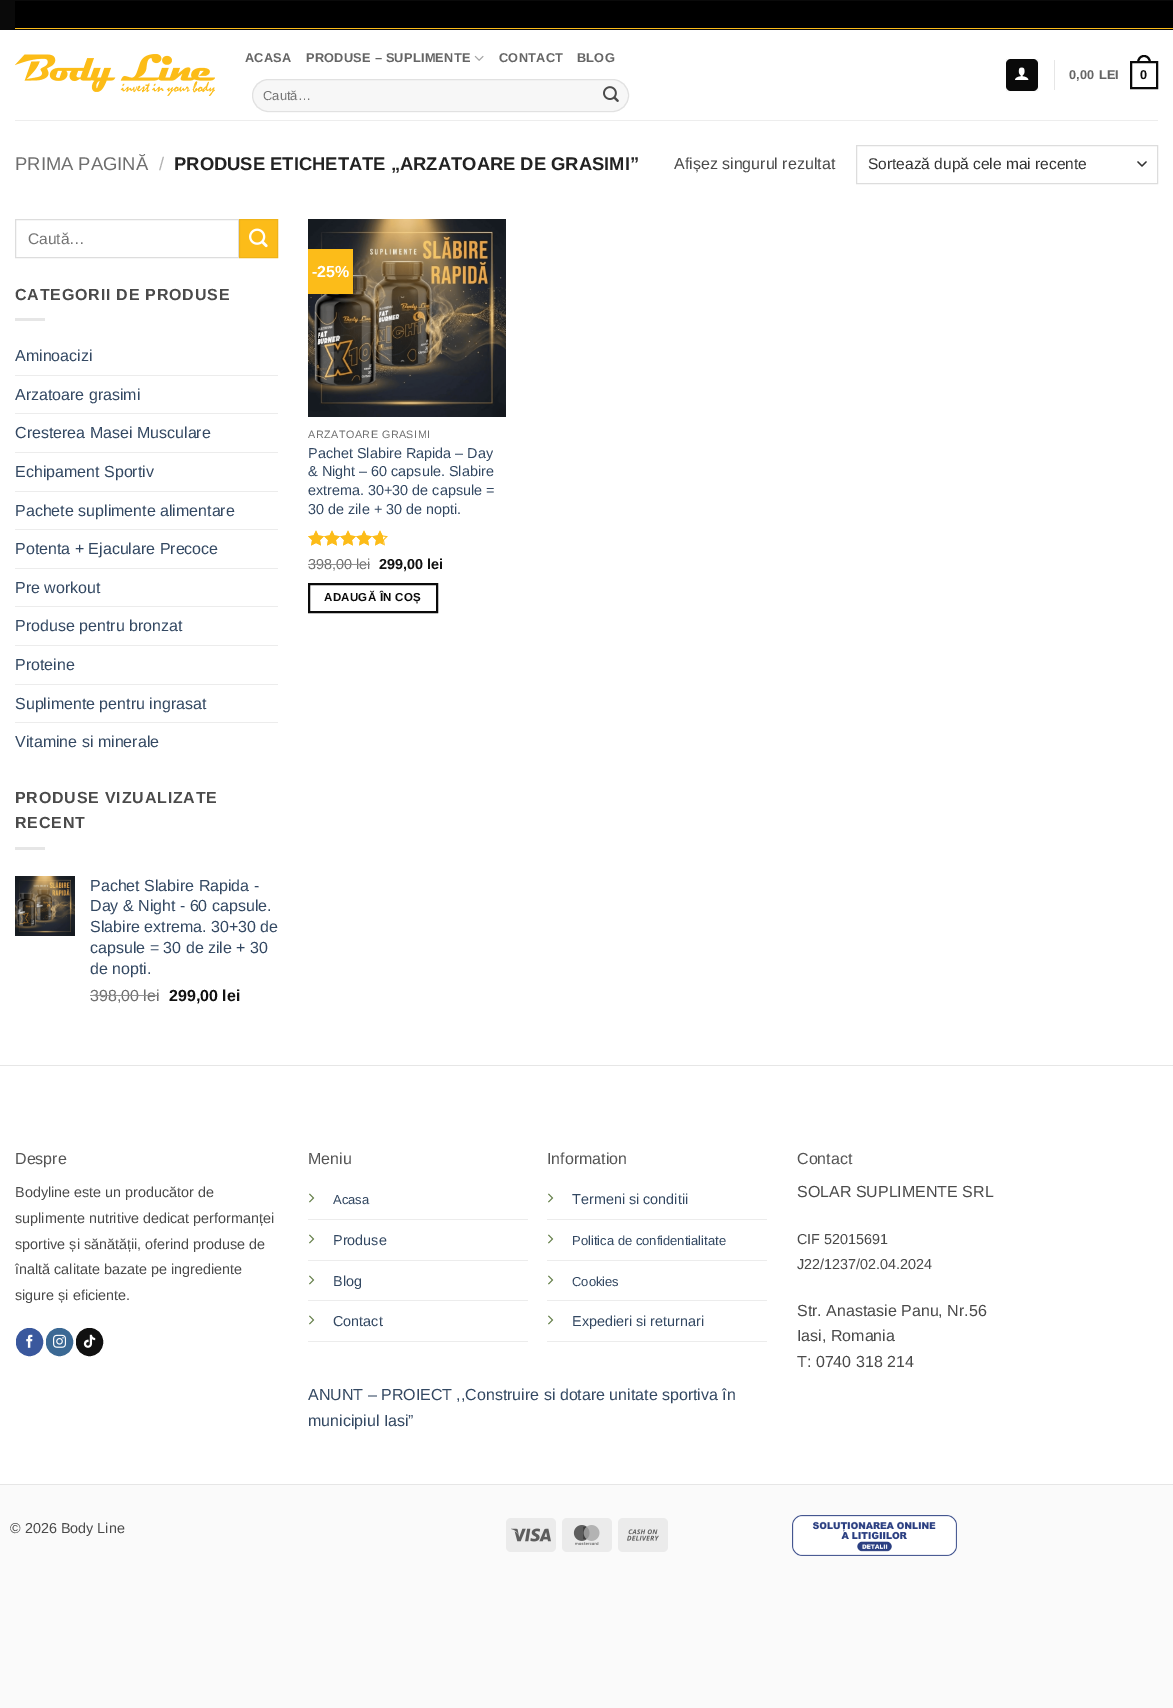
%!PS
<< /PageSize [1173 1708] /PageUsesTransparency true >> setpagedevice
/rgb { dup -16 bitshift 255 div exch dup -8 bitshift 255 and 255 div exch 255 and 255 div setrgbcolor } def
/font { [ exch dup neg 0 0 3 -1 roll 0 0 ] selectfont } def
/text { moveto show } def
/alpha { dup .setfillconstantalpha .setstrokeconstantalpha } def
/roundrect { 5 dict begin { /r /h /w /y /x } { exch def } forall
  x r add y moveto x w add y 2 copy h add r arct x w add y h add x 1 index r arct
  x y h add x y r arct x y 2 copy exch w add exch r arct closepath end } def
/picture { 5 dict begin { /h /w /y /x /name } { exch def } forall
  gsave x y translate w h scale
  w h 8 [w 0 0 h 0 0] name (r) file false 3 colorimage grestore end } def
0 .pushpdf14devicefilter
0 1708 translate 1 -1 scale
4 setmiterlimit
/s1 { /LiberationSans-Regular 13 font 16#757575 rgb } def
/s2 { /LiberationSans-Regular 18.4 font 16#6E6E6E rgb } def
/s3 { /LiberationSans-Regular 18.4 font 16#B2B2B2 rgb } def
/s4 { /LiberationSans-Bold 18.4 font 16#222222 rgb } def
/s5 { /LiberationSans-Regular 16 font 16#4A4A4A rgb } def
/s6 { /LiberationSans-Regular 15.5 font 16#333333 rgb } def
/s7 { /LiberationSans-Regular 15.5 font 16#757575 rgb } def
/s8 { /LiberationSans-Regular 16 font 16#334862 rgb } def
/s9 { /LiberationSans-Regular 16 font 16#6E6E6E rgb } def
/s10 { /LiberationSans-Bold 16 font 16#111111 rgb } def
/s11 { /LiberationSans-Bold 16 font 16#FFFFFF rgb } def
/s12 { /LiberationSans-Regular 14.4 font 16#334862 rgb } def
/s13 { /LiberationSans-Regular 14.4 font 16#6E6E6E rgb } def
/s14 { /LiberationSans-Bold 14.4 font 16#111111 rgb } def
/s15 { /LiberationSans-Regular 16 font 16#555555 rgb } def
/s16 { /LiberationSans-Regular 14.4 font 16#4A4A4A rgb } def
/s17 { /LiberationSans-Regular 13 font 16#334862 rgb } def
16#FFFFFF rgb
0 0 1173 1708 rectfill
16#0A0A0A rgb
0 0 1173 30 rectfill
16#000000 rgb
15 1 1158 27 rectfill
16#FCBC19 rgb
15 28 1158 1 rectfill
(pic1.raw) 15 54 200 42 picture
/LiberationSans-Bold 12.75 font
16#656565 rgb
245 62 moveto 0.25 0 (ACASA) ashow
306 62 moveto 0.25 0 (PRODUSE – SUPLIMENTE) ashow
(pic2.raw) 474 55 10 6 picture
499 62 moveto 0.25 0 (CONTACT) ashow
577 62 moveto 0.25 0 (BLOG) ashow
16#F7F7F7 rgb
252 79 377 33 16.5 roundrect fill
0.09 alpha
16#000000 rgb
252.5 79.5 376 32 16 roundrect stroke
1 alpha
s1
(Caută…) 263 100 text
(pic3.raw) 603 86 16 16 picture
16#0A0A0A rgb
1006 59 32 32 5 roundrect fill
0.05 alpha
16#000000 rgb
1006.5 59.5 31 31 rectstroke
1 alpha
(pic4.raw) 1015 67 14 13 picture
16#E6E6E6 rgb
1054 60 1 30 rectfill
/LiberationSans-Bold 12.75 font
16#656565 rgb
1069 79 moveto 0.25 0 (0,00 LEI) ashow
16#0A0A0A rgb
2 setlinewidth
1131 62 26 26 rectstroke
1144 55 moveto 1148.5 55 1151 59 1151 63 curveto 1137 63 lineto 1137 59 1139.5 55 1144 55 curveto closepath 1144 57 moveto 1147.5 57 1149 60 1149 63 curveto 1139 63 lineto 1139 60 1140.5 57 1144 57 curveto closepath eofill
1140 79 moveto 0.25 0 (0) ashow
16#EDEDED rgb
15 120 1143 1 rectfill
s2
(PRIMA PAGINĂ) 15 170 text
s3
(/) 159 170 text
s4
(PRODUSE ETICHETATE „ARZATOARE DE GRASIMI”) 174 170 text
s5
(Afișez singurul rezultat) 674 169 text
16#333333 rgb
1.3 setlinewidth
1 setlinecap
1 setlinejoin
1138 162 moveto 1142 166 lineto 1146 162 lineto stroke
16#DDDDDD rgb
1 setlinewidth
0 setlinecap
0 setlinejoin
856.5 145.5 301 38 rectstroke
s6
(Sortează după cele mai recente) 868 169 text
16#DDDDDD rgb
15.5 219.5 223 38 rectstroke
s7
(Caută…) 28 244 text
16#FCBC19 rgb
239.5 219.5 moveto 277.5 219.5 lineto 277.5 257.5 lineto 239.5 257.5 lineto closepath gsave fill grestore
16#EFB318 rgb
stroke
(pic5.raw) 249 228 19 20 picture
/LiberationSans-Bold 16 font
16#4A4A4A rgb
15 300 moveto 0.8 0 (CATEGORII DE PRODUSE) ashow
16#E6E6E6 rgb
15 318 30 3 rectfill
s8
(Aminoacizi) 15 361 text
16#ECECEC rgb
15 375 263 1 rectfill
s8
(Arzatoare grasimi) 15 400 text
16#ECECEC rgb
15 413 263 1 rectfill
s8
(Cresterea Masei Musculare) 15 438 text
16#ECECEC rgb
15 452 263 1 rectfill
s8
(Echipament Sportiv) 15 477 text
16#ECECEC rgb
15 491 263 1 rectfill
s8
(Pachete suplimente alimentare) 15 516 text
16#ECECEC rgb
15 529 263 1 rectfill
s8
(Potenta + Ejaculare Precoce) 15 554 text
16#ECECEC rgb
15 568 263 1 rectfill
s8
(Pre workout) 15 593 text
16#ECECEC rgb
15 606 263 1 rectfill
s8
(Produse pentru bronzat) 15 631 text
16#ECECEC rgb
15 645 263 1 rectfill
s8
(Proteine) 15 670 text
16#ECECEC rgb
15 684 263 1 rectfill
s8
(Suplimente pentru ingrasat) 15 709 text
16#ECECEC rgb
15 722 263 1 rectfill
s8
(Vitamine si minerale) 15 747 text
/LiberationSans-Bold 16 font
16#4A4A4A rgb
15 803 moveto 0.8 0 (PRODUSE VIZUALIZATE) ashow
15 828 moveto 0.8 0 (RECENT) ashow
16#E6E6E6 rgb
15 847 30 3 rectfill
(pic6.raw) 15 876 60 60 picture
s8
(Pachet Slabire Rapida -) 90 891 text
(Day & Night - 60 capsule.) 90 911 text
(Slabire extrema. 30+30 de) 90 932 text
(capsule = 30 de zile + 30) 90 953 text
(de nopti.) 90 974 text
s9
(398,00 lei) 90 1001 text
16#929292 rgb
90 995 69 1 rectfill
s10
(299,00 lei) 169 1001 text
(pic7.raw) 308 219 198 198 picture
16#FCBC19 rgb
308 249 45 45 rectfill
s11
(-25%) 312 277 text
/LiberationSans-Regular 10.75 font
16#6E6E6E rgb
308 438 moveto 0.5 0 (ARZATOARE GRASIMI) ashow
s12
(Pachet Slabire Rapida – Day) 308 458 text
(& Night – 60 capsule. Slabire) 308 476 text
(extrema. 30+30 de capsule =) 308 495 text
(30 de zile + 30 de nopti.) 308 514 text
(pic8.raw) 308 530 80 16 picture
(pic9.raw) 308 530 75 16 picture
s13
(398,00 lei) 308 569 text
16#929292 rgb
308 564 62 1 rectfill
s14
(299,00 lei) 379 569 text
16#0A0A0A rgb
2 setlinewidth
309 584 128 28 rectstroke
/LiberationSans-Bold 11.5 font
324 601 moveto 0.3 0 (ADAUGĂ ÎN COȘ) ashow
16#E6E6E6 rgb
0 1065 1173 1 rectfill
s15
(Despre) 15 1164 text
s16
(Bodyline este un producător de) 15 1197 text
(suplimente nutritive dedicat performanței) 15 1223 text
(sportive și sănătății, oferind produse de) 15 1249 text
(înaltă calitate bazate pe ingrediente) 15 1274 text
(sigure și eficiente.) 15 1300 text
16#3A589D rgb
16.5 1328.5 26 27 13 roundrect gsave fill grestore
1 setlinewidth
stroke
(pic10.raw) 26 1334 7 14 picture
16#3B6994 rgb
46.5 1328.5 26 27 13 roundrect gsave fill grestore
stroke
(pic11.raw) 53 1334 14 14 picture
16#111111 rgb
76.5 1328.5 26 27 13 roundrect gsave fill grestore
stroke
(pic12.raw) 83 1334 13 14 picture
s15
(Meniu) 308 1164 text
16#ECECEC rgb
308 1219 220 1 rectfill
(pic13.raw) 309 1193 6 10 picture
s17
(Acasa) 333 1204 text
16#ECECEC rgb
308 1260 220 1 rectfill
(pic13.raw) 309 1234 6 10 picture
s12
(Produse) 333 1245 text
16#ECECEC rgb
308 1300 220 1 rectfill
(pic13.raw) 309 1275 6 10 picture
s12
(Blog) 333 1286 text
16#ECECEC rgb
308 1341 220 1 rectfill
(pic13.raw) 309 1315 6 10 picture
s12
(Contact) 333 1326 text
s15
(Information) 547 1164 text
16#ECECEC rgb
547 1219 220 1 rectfill
(pic13.raw) 548 1193 6 10 picture
s12
(Termeni si conditii) 572 1204 text
16#ECECEC rgb
547 1260 220 1 rectfill
(pic13.raw) 548 1234 6 10 picture
s17
(Politica de confidentialitate) 572 1245 text
16#ECECEC rgb
547 1300 220 1 rectfill
(pic13.raw) 548 1275 6 10 picture
s17
(Cookies) 572 1286 text
16#ECECEC rgb
547 1341 220 1 rectfill
(pic13.raw) 548 1315 6 10 picture
s12
(Expedieri si returnari) 572 1326 text
s8
(ANUNT – PROIECT ,,Construire si dotare unitate sportiva în) 308 1400 text
(municipiul Iasi”) 308 1426 text
s15
(Contact) 797 1164 text
s5
(SOLAR SUPLIMENTE SRL) 797 1197 text
s16
(CIF 52015691) 797 1244 text
(J22/1237/02.04.2024) 797 1269 text
s5
(Str. Anastasie Panu, Nr.56) 797 1316 text
(Iasi, Romania) 797 1341 text
(T: 0740 318 214) 797 1367 text
16#E6E6E6 rgb
0 1484 1173 1 rectfill
16#FAFAFA rgb
0 1485 1173 223 rectfill
s16
(© 2026 Body Line) 10 1533 text
16#EBEBEB rgb
506 1518 50 34 5 roundrect fill
(pic14.raw) 511 1528 40 14 picture
562 1518 50 34 5 roundrect fill
(pic15.raw) 573 1525 27 20 picture
618 1518 50 34 5 roundrect fill
(pic16.raw) 627 1529 32 12 picture
(pic17.raw) 792 1515 165 41 picture
.poppdf14devicefilter showpage
